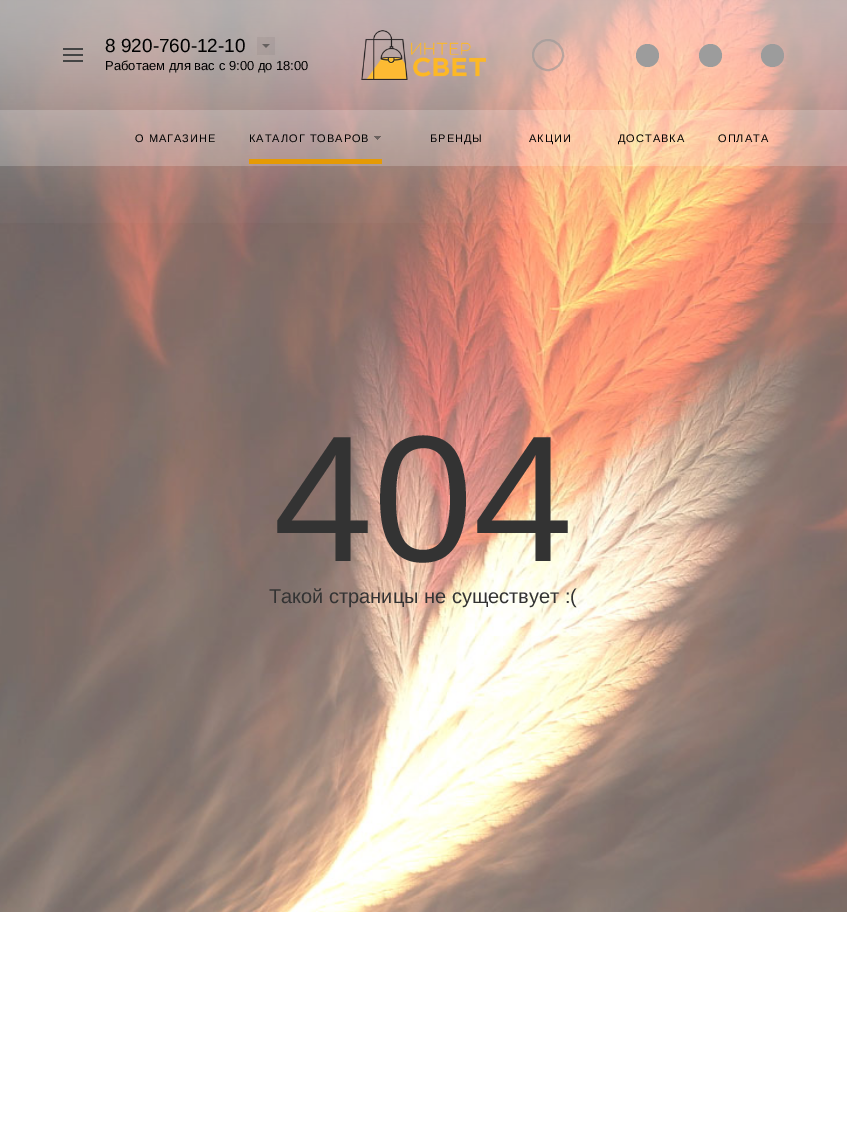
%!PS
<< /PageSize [847 1139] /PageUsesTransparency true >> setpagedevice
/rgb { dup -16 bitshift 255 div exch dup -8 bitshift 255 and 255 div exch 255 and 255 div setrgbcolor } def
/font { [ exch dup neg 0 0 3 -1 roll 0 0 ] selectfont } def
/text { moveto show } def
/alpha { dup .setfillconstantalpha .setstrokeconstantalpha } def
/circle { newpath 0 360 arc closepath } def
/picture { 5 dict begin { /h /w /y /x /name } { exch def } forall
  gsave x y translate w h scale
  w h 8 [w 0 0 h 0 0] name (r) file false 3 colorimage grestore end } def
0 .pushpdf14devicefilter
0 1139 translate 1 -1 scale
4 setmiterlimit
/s1 { /LiberationSans-Regular 19 font 16#000000 rgb } def
/s2 { /LiberationSans-Regular 13 font 16#000000 rgb } def
/s3 { /LiberationSans-Regular 180 font 16#333333 rgb } def
/s4 { /LiberationSans-Regular 20 font 16#333333 rgb } def
16#FFFFFF rgb
0 0 847 1139 rectfill
(pic4.raw) 0 0 847 912 picture
(pic5.raw) 0 0 847 223 picture
16#444444 rgb
63 48 20 2 rectfill
63 54 20 2 rectfill
63 60 20 2 rectfill
s1
(8 920-760-12-10) 105 52 text
0.05 alpha
257 37 18 18 rectfill
1 alpha
(pic1.raw) 262 44 8 4 picture
s2
(Работаем для вас с 9:00 до 18:00) 105 70 text
(pic2.raw) 361 30 125 50 picture
0.6 alpha
16#969696 rgb
2 setlinewidth
548 55 15 circle stroke
1 alpha
16#9C9C9C rgb
647.5 55.5 11.5 circle fill
710.5 55.5 11.5 circle fill
772.5 55.5 11.5 circle fill
0.2 alpha
16#FFFFFF rgb
0 110 847 56 rectfill
/LiberationSans-Regular 11 font
1 alpha
16#000000 rgb
135 142 moveto 1 0 (О МАГАЗИНЕ) ashow
(pic3.raw) 374 136 7 4 picture
249 142 moveto 1 0 (КАТАЛОГ ТОВАРОВ) ashow
16#E59A05 rgb
249 159 133 5 rectfill
16#000000 rgb
430 142 moveto 1 0 (БРЕНДЫ) ashow
529 142 moveto 1 0 (АКЦИИ) ashow
618 142 moveto 1 0 (ДОСТАВКА) ashow
718 142 moveto 1 0 (ОПЛАТА) ashow
s3
(404) 273 561 text
s4
(Такой страницы не существует :\() 269 603 text
.poppdf14devicefilter showpage
